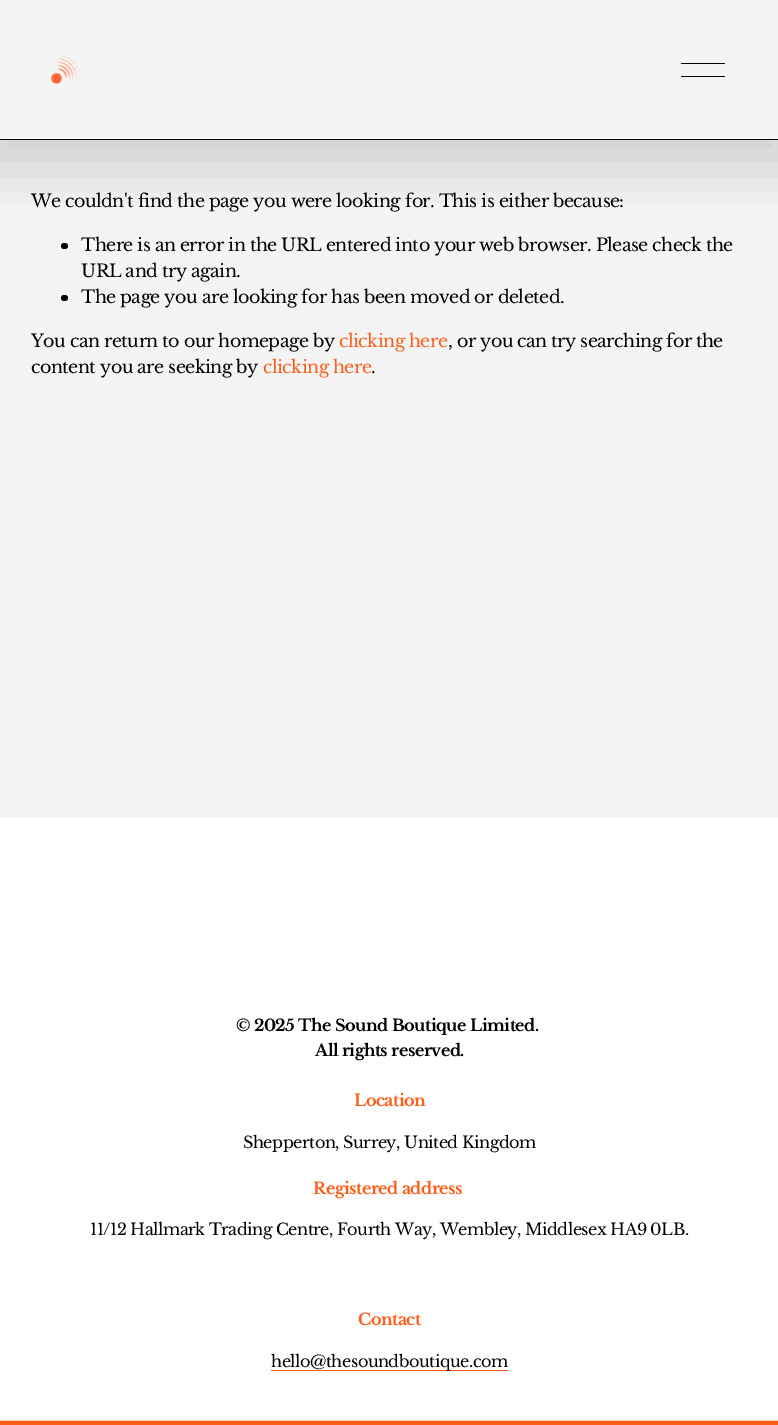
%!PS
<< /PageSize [778 1425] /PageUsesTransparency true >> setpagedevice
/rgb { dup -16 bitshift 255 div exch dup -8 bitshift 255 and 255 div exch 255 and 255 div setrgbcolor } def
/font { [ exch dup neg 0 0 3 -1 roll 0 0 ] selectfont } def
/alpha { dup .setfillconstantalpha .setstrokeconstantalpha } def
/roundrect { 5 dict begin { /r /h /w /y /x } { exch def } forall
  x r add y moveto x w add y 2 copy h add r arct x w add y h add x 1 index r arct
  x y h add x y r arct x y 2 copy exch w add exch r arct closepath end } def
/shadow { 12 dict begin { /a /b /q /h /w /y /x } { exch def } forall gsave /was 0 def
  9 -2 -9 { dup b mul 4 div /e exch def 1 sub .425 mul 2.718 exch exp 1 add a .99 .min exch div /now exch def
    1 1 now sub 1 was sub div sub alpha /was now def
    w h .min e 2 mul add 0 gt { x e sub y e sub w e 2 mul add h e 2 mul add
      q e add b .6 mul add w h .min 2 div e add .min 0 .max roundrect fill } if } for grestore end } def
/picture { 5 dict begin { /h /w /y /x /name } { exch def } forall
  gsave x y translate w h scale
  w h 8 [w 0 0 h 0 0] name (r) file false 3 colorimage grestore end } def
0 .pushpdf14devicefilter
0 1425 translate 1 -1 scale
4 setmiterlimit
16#F4F4F4 rgb
0 0 778 1425 rectfill
16#000000 rgb
61 243 7 6 3 roundrect fill
gsave
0 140 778 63 rectclip
-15 0 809 170 0 30 0.15 shadow
grestore
(pic1.raw) 50 55 30 29 picture
681 63 44 1 rectfill
681 76 44 1 rectfill
0 139 778 1 rectfill
/LibreBaskerville-Regular 17.5 font
31 207 moveto -0.53 0 (We couldn't find the page you were looking for. This is either because:) ashow
81 251 moveto -0.53 0 (There is an error in the URL entered into your web browser. Please check the) ashow
81 277 moveto -0.53 0 (URL and try again.) ashow
61 295 7 6 3 roundrect fill
81 303 moveto -0.53 0 (The page you are looking for has been moved or deleted.) ashow
31 347 moveto -0.53 0 (You can return to our homepage by) ashow
16#FF5E1A rgb
339 347 moveto -0.53 0 (clicking here) ashow
16#000000 rgb
448 347 moveto -0.53 0 (, or you can try searching for the) ashow
31 373 moveto -0.53 0 (content you are seeking by) ashow
16#FF5E1A rgb
263 373 moveto -0.53 0 (clicking here) ashow
16#000000 rgb
371 373 moveto -0.53 0 (.) ashow
16#FFFFFF rgb
0 818 778 603 rectfill
/LibreBaskerville-Bold 16.15 font
16#000000 rgb
236 1031 moveto -0.53 0 (© 2025 The Sound Boutique Limited.) ashow
315 1056 moveto -0.53 0 (All rights reserved.) ashow
16#FF5E1A rgb
354 1106 moveto -0.53 0 (Location) ashow
/LibreBaskerville-Regular 16.15 font
16#000000 rgb
243 1148 moveto -0.53 0 (Shepperton, Surrey, United Kingdom) ashow
/LibreBaskerville-Bold 16.15 font
16#FF5E1A rgb
313 1194 moveto -0.53 0 (Registered address) ashow
/LibreBaskerville-Regular 16.15 font
16#000000 rgb
90 1235 moveto -0.53 0 (11/12 Hallmark Trading Centre, Fourth Way, Wembley, Middlesex HA9 0LB.) ashow
/LibreBaskerville-Bold 16.15 font
16#FF5E1A rgb
358 1325 moveto -0.53 0 (Contact) ashow
271 1370 237 1 rectfill
/LibreBaskerville-Regular 16.15 font
16#000000 rgb
271 1367 moveto -0.53 0 (hello@thesoundboutique.com) ashow
16#FF5E1A rgb
7.5 setlinewidth
2 setlinecap
-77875 1121 moveto -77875 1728.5 lineto 0 1424.5 moveto 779 1424.5 lineto stroke
.poppdf14devicefilter showpage
